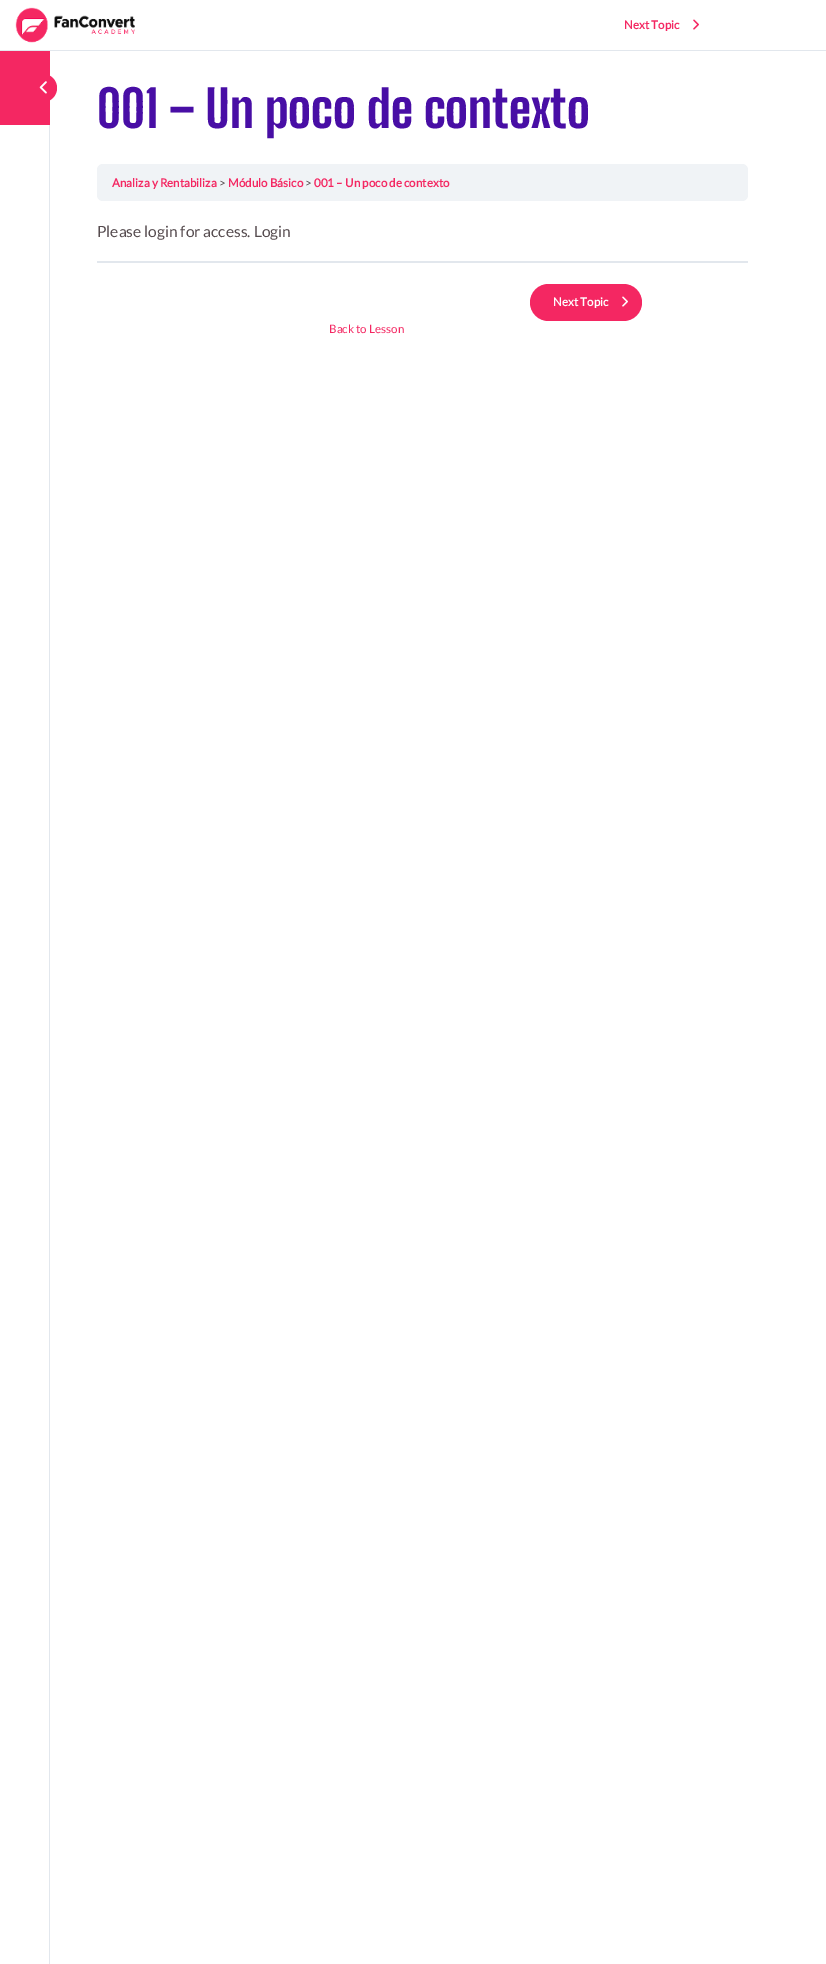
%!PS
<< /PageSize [826 1964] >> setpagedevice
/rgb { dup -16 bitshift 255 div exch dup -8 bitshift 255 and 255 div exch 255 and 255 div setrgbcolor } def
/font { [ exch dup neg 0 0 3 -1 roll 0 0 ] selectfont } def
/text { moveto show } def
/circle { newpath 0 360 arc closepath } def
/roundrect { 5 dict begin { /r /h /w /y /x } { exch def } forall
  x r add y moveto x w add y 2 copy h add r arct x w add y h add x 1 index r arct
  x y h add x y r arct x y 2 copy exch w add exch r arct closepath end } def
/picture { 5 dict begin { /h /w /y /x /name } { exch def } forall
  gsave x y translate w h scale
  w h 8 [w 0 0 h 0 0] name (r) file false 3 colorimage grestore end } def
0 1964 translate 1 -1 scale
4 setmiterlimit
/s1 { /Lato-Bold 11.6 font 16#F42762 rgb } def
/s2 { /BigShouldersDisplay-ExtraBold 51 font 16#480EA5 rgb } def
/s3 { /Lato-Regular 11.6 font 16#554B4E rgb } def
/s4 { /Lato-Regular 15.5 font 16#554B4E rgb } def
/s5 { /Lato-Bold 11.6 font 16#FFFFFF rgb } def
/s6 { /Lato-Regular 11.6 font 16#F42762 rgb } def
16#FFFFFF rgb
0 0 826 1964 rectfill
16#E2E7ED rgb
49 125 1 1839 rectfill
16#F42762 rgb
0 51 50 74 rectfill
43 88 14 circle fill
(pic1.raw) 39 81 8 13 picture
16#E2E7ED rgb
0 50 826 1 rectfill
(pic2.raw) 15 7 120 36 picture
s1
(Next Topic) 624 29 text
(pic3.raw) 693 19 6 11 picture
s2
(001 – Un poco de contexto) 97 128 text
16#F0F3F6 rgb
97 164 651 37 6 roundrect fill
s1
(Analiza y Rentabiliza) 112 187 text
s3
(>) 219 187 text
s1
(Módulo Básico) 228 187 text
s3
(>) 305 187 text
s1
(001 – Un poco de contexto) 314 187 text
s4
(Please login for access. Login) 97 237 text
16#E2E7ED rgb
97 261 651 2 rectfill
16#F42762 rgb
530 284 112 37 18.5 roundrect fill
s5
(Next Topic) 553 306 text
(pic4.raw) 622 296 6 11 picture
s6
(Back to Lesson) 329 333 text
showpage
